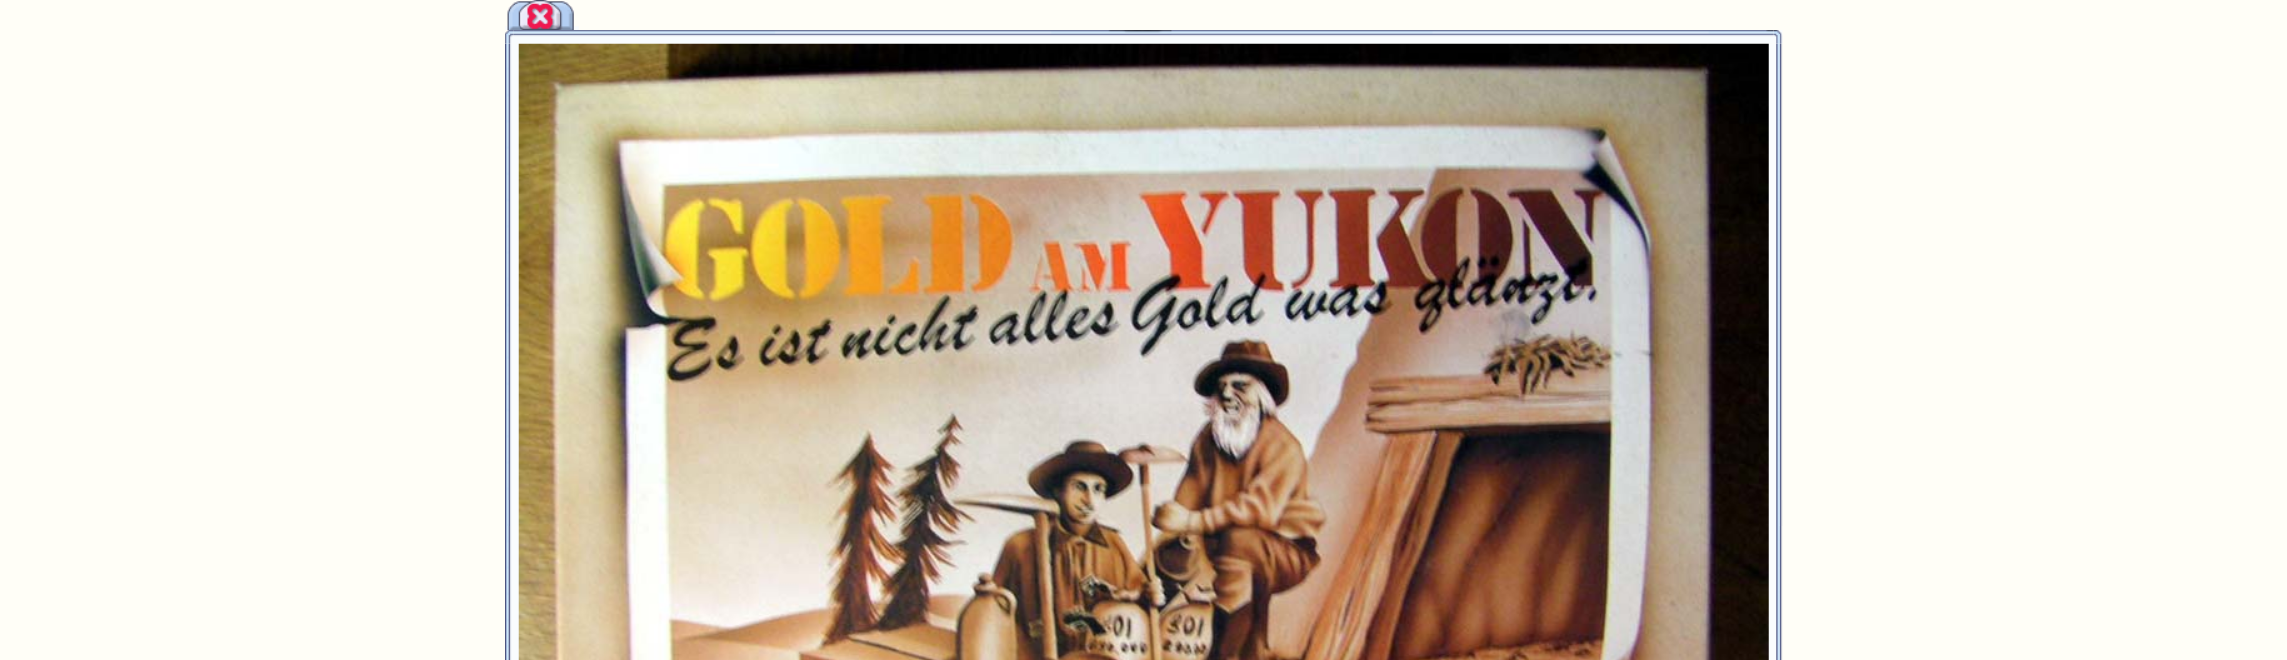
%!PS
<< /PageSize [2287 660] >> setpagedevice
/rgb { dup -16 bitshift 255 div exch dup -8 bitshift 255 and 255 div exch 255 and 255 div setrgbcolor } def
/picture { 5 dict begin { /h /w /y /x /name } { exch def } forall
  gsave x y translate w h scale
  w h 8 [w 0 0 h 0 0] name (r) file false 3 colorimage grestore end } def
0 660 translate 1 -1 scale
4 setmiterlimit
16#FFFEF7 rgb
0 0 2287 660 rectfill
(pic1.raw) 505 0 74 30 picture
(pic3.raw) 513 30 1261 14 picture
(pic6.raw) 505 43 9 617 picture
(pic2.raw) 505 30 9 14 picture
(pic4.raw) 513 30 659 5 picture
(pic9.raw) 1774 43 9 617 picture
(pic5.raw) 1773 30 10 14 picture
(pic7.raw) 507 500 3 26 picture
16#F9FCFE rgb
514 44 1260 616 rectfill
(pic8.raw) 518 43 1251 617 picture
(pic10.raw) 1779 500 4 26 picture
showpage
